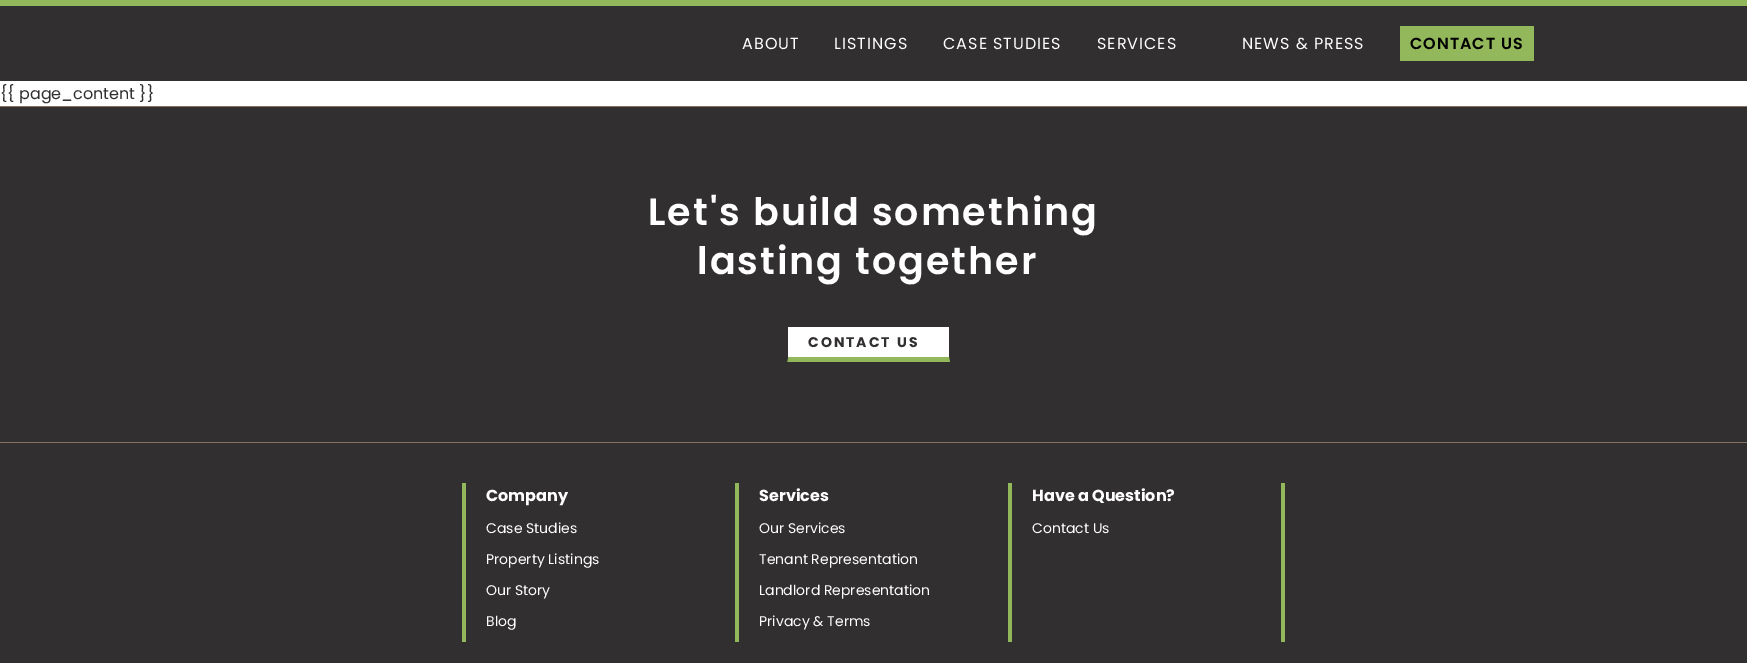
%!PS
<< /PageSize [1747 663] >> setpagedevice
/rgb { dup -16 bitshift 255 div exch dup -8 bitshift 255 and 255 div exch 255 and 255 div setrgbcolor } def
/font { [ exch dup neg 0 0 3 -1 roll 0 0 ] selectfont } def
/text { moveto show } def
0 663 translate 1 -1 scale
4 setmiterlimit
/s1 { /Poppins-Regular 16 font 16#322F31 rgb } def
/s2 { /Poppins-Bold 16 font 16#FFFFFF rgb } def
/s3 { /Poppins-Regular 14 font 16#FFFFFF rgb } def
16#FFFFFF rgb
0 0 1747 663 rectfill
16#322F31 rgb
0 6 1747 75 rectfill
16#92B85B rgb
0 0 1747 6 rectfill
/Poppins-Regular 16 font
16#FFFFFF rgb
742 49 moveto 1 0 (ABOUT) ashow
834 49 moveto 1 0 (LISTINGS) ashow
943 49 moveto 1 0 (CASE STUDIES) ashow
1097 49 moveto 1 0 (SERVICES) ashow
1242 49 moveto 1 0 (NEWS & PRESS) ashow
16#92B85B rgb
1400 26 134 35 rectfill
/Poppins-SemiBold 16 font
16#000000 rgb
1410 49 moveto 1 0 (CONTACT US) ashow
s1
({{ page_content }}) 0 99 text
0 107 1747 335 rectfill
16#857161 rgb
0 106 1747 1 rectfill
0 442 1747 1 rectfill
/Poppins-SemiBold 38 font
16#FFFFFF rgb
648 225 moveto 2 0 (Let's build something) ashow
697 274 moveto 2 0 (lasting together) ashow
788 327 161 30 rectfill
16#92B85B rgb
950 362 moveto 787 362 lineto 788 357 lineto 949 357 lineto closepath fill
16#322F31 rgb
787 362 moveto 787 326 lineto 788 327 lineto 788 357 lineto closepath fill
/Poppins-Bold 14 font
808 347 moveto 2 0 (CONTACT US) ashow
0 443 1747 220 rectfill
16#92B85B rgb
462 483 4 159 rectfill
s2
(Company) 486 501 text
s3
(Case Studies) 486 533 text
(Property Listings) 486 564 text
(Our Story) 486 595 text
(Blog) 486 626 text
16#92B85B rgb
735 483 4 159 rectfill
s2
(Services) 759 501 text
s3
(Our Services) 759 533 text
(Tenant Representation) 759 564 text
(Landlord Representation) 759 595 text
(Privacy & Terms) 759 626 text
16#92B85B rgb
1008 483 4 159 rectfill
s2
(Have a Question?) 1032 501 text
s3
(Contact Us) 1032 533 text
16#92B85B rgb
1281 483 4 159 rectfill
showpage
